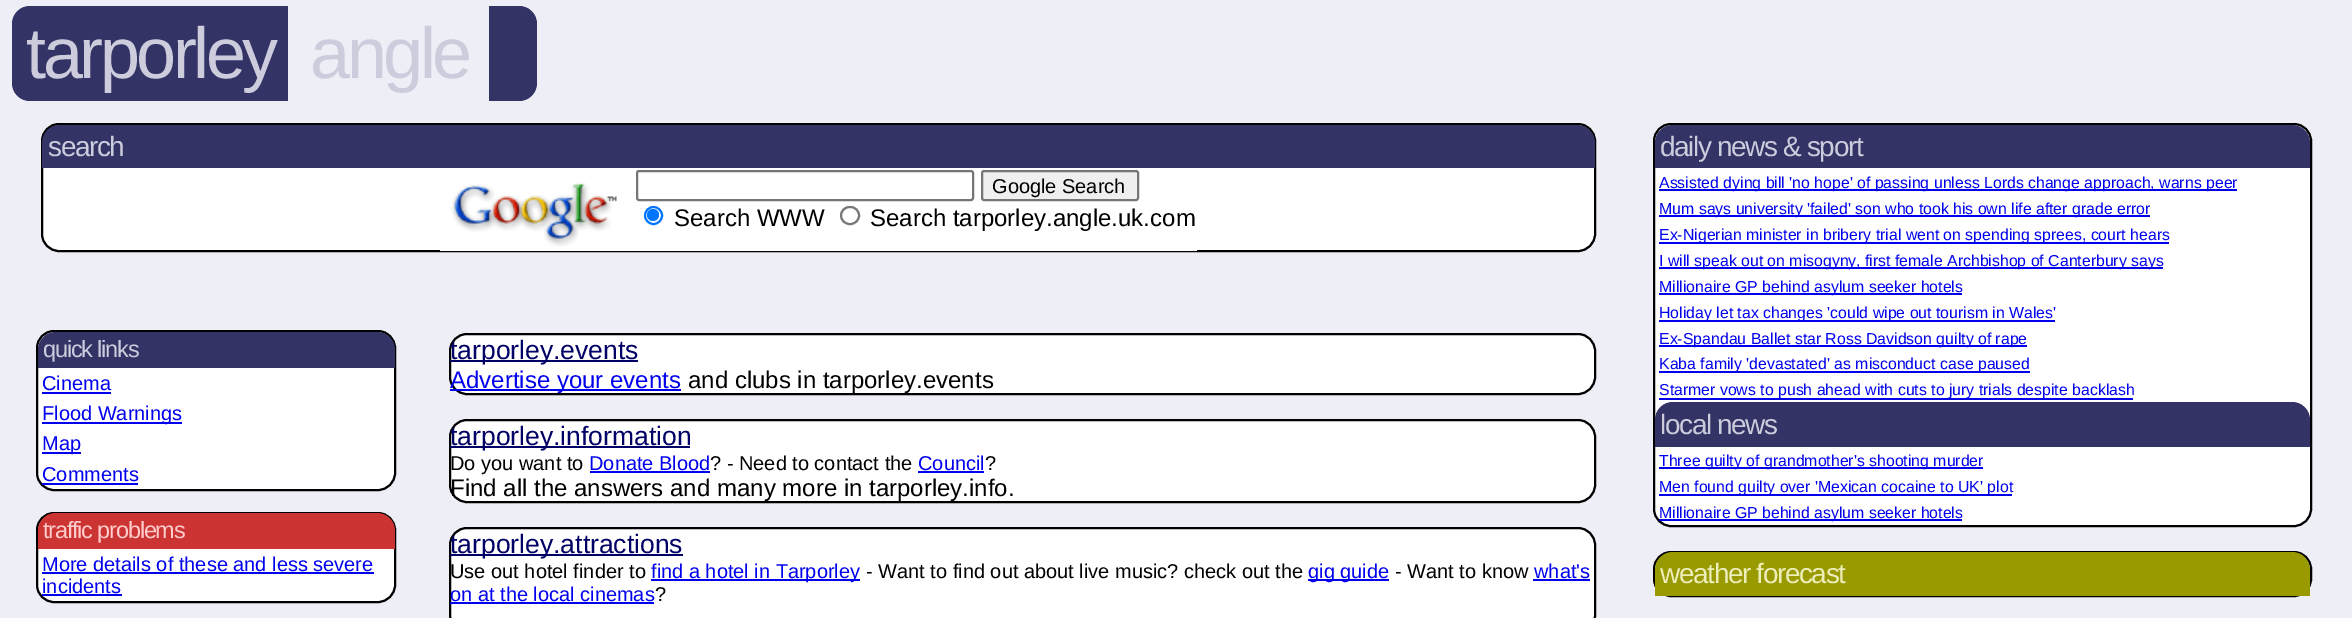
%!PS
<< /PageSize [2352 618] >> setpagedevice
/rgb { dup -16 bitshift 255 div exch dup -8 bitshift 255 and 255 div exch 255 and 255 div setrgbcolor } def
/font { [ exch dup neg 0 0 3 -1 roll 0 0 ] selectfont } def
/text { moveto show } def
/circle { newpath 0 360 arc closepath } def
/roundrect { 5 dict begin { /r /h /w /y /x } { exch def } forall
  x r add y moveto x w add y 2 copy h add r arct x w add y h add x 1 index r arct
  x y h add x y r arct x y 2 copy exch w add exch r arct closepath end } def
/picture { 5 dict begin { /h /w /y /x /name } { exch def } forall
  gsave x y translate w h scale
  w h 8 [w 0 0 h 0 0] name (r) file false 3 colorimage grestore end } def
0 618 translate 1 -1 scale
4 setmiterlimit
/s1 { /LiberationSans-Regular 20 font 16#000000 rgb } def
/s2 { /LiberationSans-Regular 24 font 16#000000 rgb } def
/s3 { /LiberationSans-Regular 15.85 font 16#0000EE rgb } def
/s4 { /LiberationSans-Regular 20 font 16#0000EE rgb } def
/s5 { /LiberationSans-Regular 26.5 font 16#000066 rgb } def
/s6 { /LiberationSans-Regular 24 font 16#0000EE rgb } def
16#EEEEF6 rgb
0 0 2352 618 rectfill
16#333366 rgb
30 6 moveto 288 6 lineto 288 101 lineto 30 101 lineto 20 101 12 93 12 83 curveto 12 24 lineto 12 14 20 6 30 6 curveto closepath fill
/LiberationSans-Regular 72 font
16#CCCCDD rgb
26 78 moveto -3.5 0 (tarporley) ashow
310 78 moveto -3.5 0 (angle) ashow
16#333366 rgb
489 6 moveto 519 6 lineto 529 6 537 14 537 24 curveto 537 83 lineto 537 93 529 101 519 101 curveto 489 101 lineto closepath fill
16#FFFFFF rgb
42 124 1553 127 17 roundrect gsave fill grestore
16#000000 rgb
2 setlinewidth
stroke
16#333366 rgb
60 125 moveto 1577 125 lineto 1587 125 1595 133 1595 143 curveto 1595 168 lineto 42 168 lineto 42 143 lineto 42 133 50 125 60 125 curveto closepath fill
/LiberationSans-Regular 28 font
16#CCCCDD rgb
48 156 moveto -1.4 0 (search) ashow
16#FFFFFF rgb
440 250 757 1 rectfill
(pic1.raw) 450 182 167 65 picture
16#767676 rgb
637 171 336 29 2 roundrect stroke
16#EFEFEF rgb
982 171 156 29 2 roundrect gsave fill grestore
16#767676 rgb
stroke
s1
(Google Search) 992 193 text
16#0075FF rgb
653.5 215.5 8.5 circle stroke
653 215 6 circle fill
s2
(Search WWW) 674 226 text
16#767676 rgb
841 207 18 17 8.5 roundrect stroke
s2
(Search tarporley.angle.uk.com) 870 226 text
16#FFFFFF rgb
1654 124 657 402 17 roundrect gsave fill grestore
16#000000 rgb
stroke
16#333366 rgb
1673 125 moveto 2292 125 lineto 2302 125 2310 133 2310 143 curveto 2310 168 lineto 1655 168 lineto 1655 143 lineto 1655 133 1663 125 1673 125 curveto closepath fill
/LiberationSans-Regular 28 font
16#CCCCDD rgb
1660 156 moveto -1.4 0 (daily news & sport) ashow
16#0000EE rgb
1659 189 578 2 rectfill
s3
(Assisted dying bill 'no hope' of passing unless Lords change approach, warns peer) 1659 188 text
1659 215 491 2 rectfill
(Mum says university 'failed' son who took his own life after grade error) 1659 214 text
1659 242 510 2 rectfill
(Ex-Nigerian minister in bribery trial went on spending sprees, court hears) 1659 240 text
1659 267 504 2 rectfill
(I will speak out on misogyny, first female Archbishop of Canterbury says) 1659 266 text
1659 293 303 2 rectfill
(Millionaire GP behind asylum seeker hotels) 1659 292 text
1659 320 396 2 rectfill
(Holiday let tax changes 'could wipe out tourism in Wales') 1659 318 text
1659 345 368 2 rectfill
(Ex-Spandau Ballet star Ross Davidson guilty of rape) 1659 344 text
1659 371 371 2 rectfill
(Kaba family 'devastated' as misconduct case paused) 1659 369 text
1659 398 474 2 rectfill
(Starmer vows to push ahead with cuts to jury trials despite backlash) 1659 395 text
16#333366 rgb
1673 402 moveto 2292 402 lineto 2302 402 2310 410 2310 420 curveto 2310 447 lineto 1655 447 lineto 1655 420 lineto 1655 410 1663 402 1673 402 curveto closepath fill
/LiberationSans-Regular 28 font
16#CCCCDD rgb
1660 434 moveto -1.4 0 (local news) ashow
16#0000EE rgb
1659 467 324 2 rectfill
s3
(Three guilty of grandmother's shooting murder) 1659 466 text
1659 494 353 2 rectfill
(Men found guilty over 'Mexican cocaine to UK' plot) 1659 492 text
1659 519 303 2 rectfill
(Millionaire GP behind asylum seeker hotels) 1659 518 text
16#FFFFFF rgb
1654 552 657 44 17 roundrect gsave fill grestore
16#000000 rgb
stroke
16#999900 rgb
1673 552 moveto 2292 552 lineto 2302 552 2310 560 2310 570 curveto 2310 596 lineto 1655 596 lineto 1655 570 lineto 1655 560 1663 552 1673 552 curveto closepath fill
/LiberationSans-Regular 28 font
16#EEEEBB rgb
1660 583 moveto -1.4 0 (weather forecast) ashow
16#FFFFFF rgb
37 331 358 159 17 roundrect gsave fill grestore
16#000000 rgb
stroke
16#333366 rgb
56 332 moveto 377 332 lineto 387 332 395 340 395 350 curveto 395 368 lineto 38 368 lineto 38 350 lineto 38 340 46 332 56 332 curveto closepath fill
/LiberationSans-Regular 23.5 font
16#CCCCDD rgb
43 357 moveto -1.2 0 (quick links) ashow
s4
(Cinema) 42 390 text
42 392 69 2 rectfill
42 422 140 2 rectfill
(Flood Warnings) 42 420 text
42 452 39 2 rectfill
(Map) 42 450 text
(Comments) 42 481 text
42 483 96 2 rectfill
16#FFFFFF rgb
37 513 358 89 17 roundrect gsave fill grestore
16#000000 rgb
stroke
16#CC3333 rgb
56 513 moveto 377 513 lineto 387 513 395 521 395 531 curveto 395 549 lineto 38 549 lineto 38 531 lineto 38 521 46 513 56 513 curveto closepath fill
/LiberationSans-Regular 23.5 font
16#FFCCCC rgb
43 538 moveto -1.2 0 (traffic problems) ashow
s4
(More details of these and less severe) 42 571 text
42 572 332 2 rectfill
(incidents) 42 593 text
42 594 80 2 rectfill
16#FFFFFF rgb
450 334 1145 60 17 roundrect gsave fill grestore
16#000000 rgb
stroke
16#000066 rgb
450 360 188 2 rectfill
s5
(tarporley.events) 450 359 text
16#0000EE rgb
450 389 231 2 rectfill
s6
(Advertise your events) 450 388 text
s2
(and clubs in tarporley.events) 688 388 text
16#FFFFFF rgb
450 420 1145 82 17 roundrect gsave fill grestore
16#000000 rgb
stroke
16#000066 rgb
450 446 240 2 rectfill
s5
(tarporley.information) 450 445 text
s1
(Do you want to) 450 470 text
s4
(Donate Blood) 589 470 text
590 471 120 2 rectfill
s1
(? - Need to contact the) 710 470 text
s4
(Council) 918 470 text
918 471 66 2 rectfill
s1
(?) 985 470 text
s2
(Find all the answers and many more in tarporley.info.) 450 496 text
16#FFFFFF rgb
450 528 1145 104 17 roundrect gsave fill grestore
16#000000 rgb
stroke
16#000066 rgb
450 554 233 2 rectfill
s5
(tarporley.attractions) 450 553 text
s1
(Use out hotel finder to) 450 578 text
16#0000EE rgb
651 579 209 2 rectfill
(find a hotel in Tarporley) 651 578 text
s1
(- Want to find out about live music? check out the) 866 578 text
16#0000EE rgb
1308 579 81 2 rectfill
(gig guide) 1308 578 text
s1
(- Want to know) 1395 578 text
s4
(what's) 1534 578 text
1533 579 57 2 rectfill
(on at the local cinemas) 450 601 text
450 602 204 2 rectfill
s1
(?) 655 601 text
showpage
